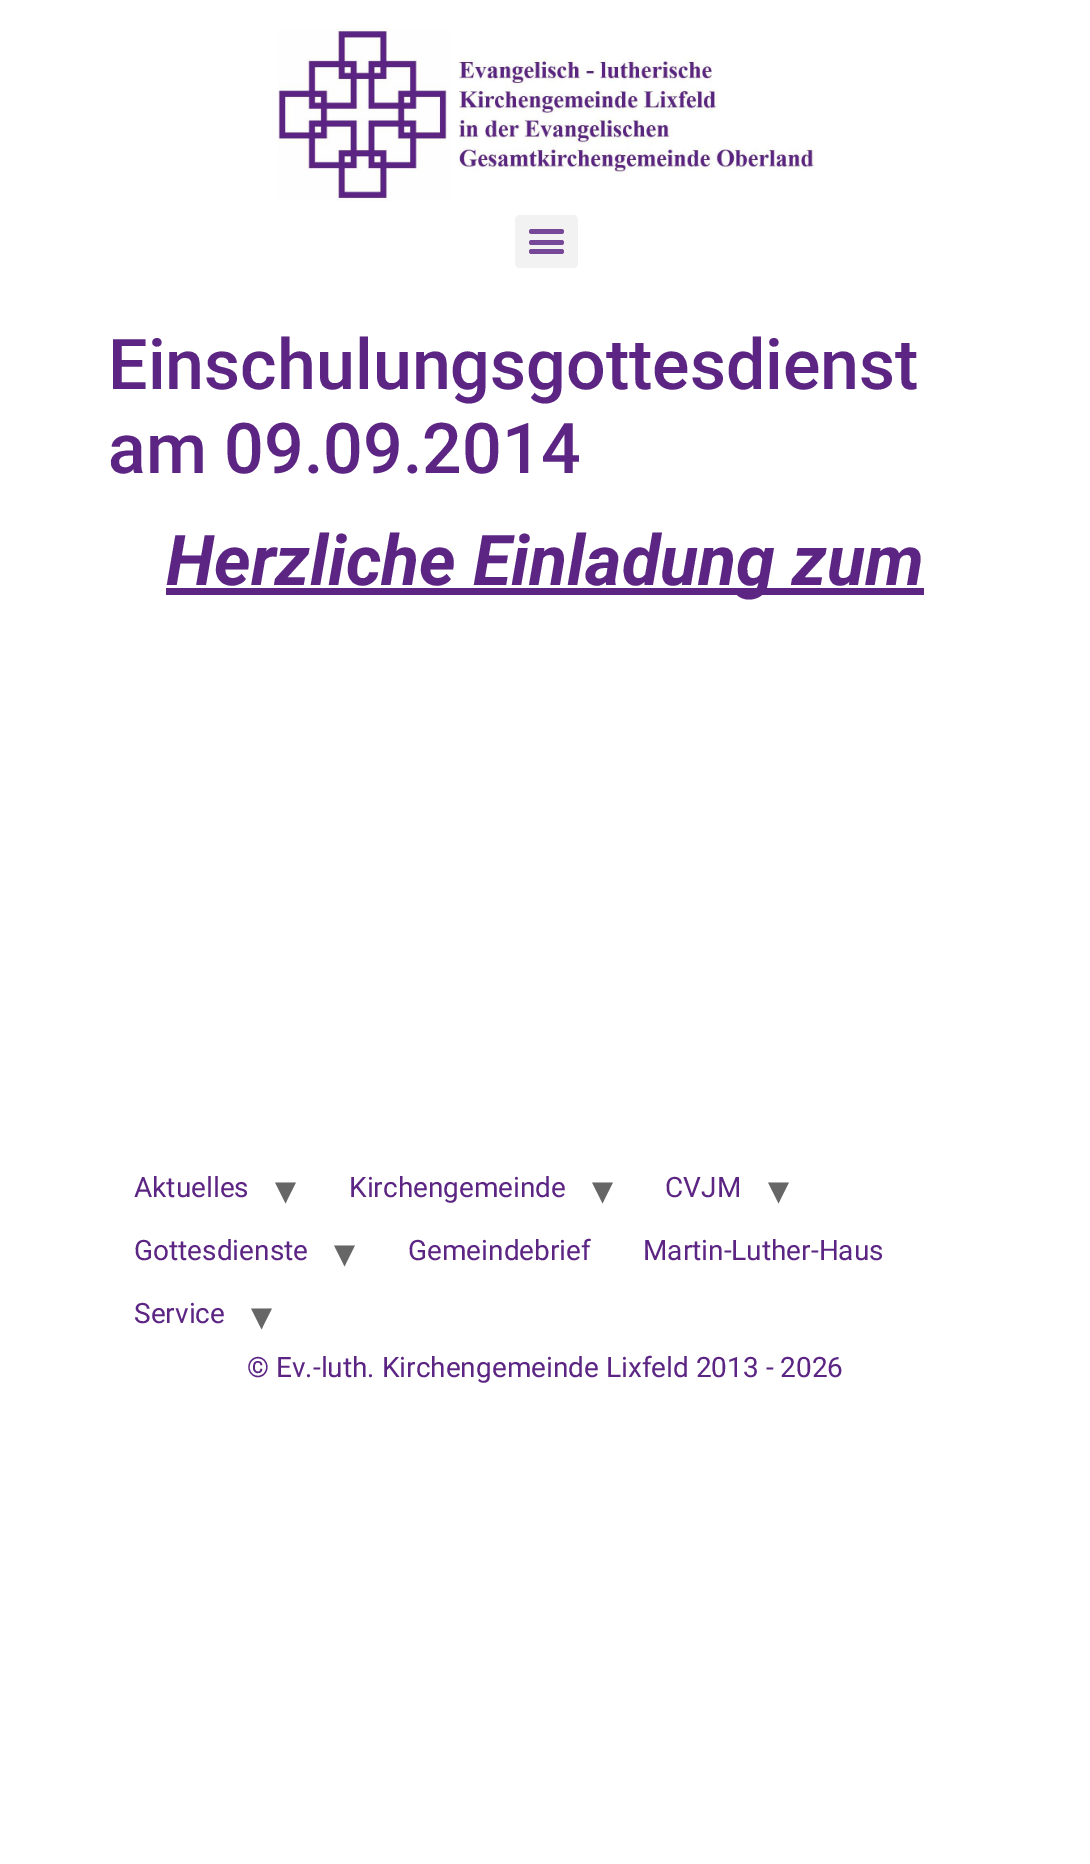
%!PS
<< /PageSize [1090 1864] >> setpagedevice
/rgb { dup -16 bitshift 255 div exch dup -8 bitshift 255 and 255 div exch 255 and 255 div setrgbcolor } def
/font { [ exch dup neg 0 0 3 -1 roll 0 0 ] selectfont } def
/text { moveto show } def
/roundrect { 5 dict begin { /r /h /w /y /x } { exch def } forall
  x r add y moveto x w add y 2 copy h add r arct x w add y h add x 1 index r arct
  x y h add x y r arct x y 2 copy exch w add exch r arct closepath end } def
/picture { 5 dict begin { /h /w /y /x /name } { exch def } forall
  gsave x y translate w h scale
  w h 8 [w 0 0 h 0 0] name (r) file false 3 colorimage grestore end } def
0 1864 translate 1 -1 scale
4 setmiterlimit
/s1 { /Roboto-Medium 70 font 16#5C2583 rgb } def
/s2 { /Roboto-BoldItalic 70 font 16#5C2583 rgb } def
/s3 { /Roboto-Regular 28 font 16#5C2583 rgb } def
/s4 { /DejaVuSans-Regular 42 font 16#666666 rgb } def
16#FFFFFF rgb
0 0 1090 1864 rectfill
(pic1.raw) 278 28 538 173 picture
16#F2F2F2 rgb
515 215 63 53 5 roundrect fill
16#774898 rgb
529 240 35 5 2.5 roundrect fill
529 229 35 5 2.5 roundrect fill
529 249 35 5 2.5 roundrect fill
s1
(Einschulungsgottesdienst) 108 389 text
(am 09.09.2014) 108 473 text
166 588 758 7 rectfill
s2
(Herzliche Einladung zum) 166 585 text
s3
(Aktuelles) 134 1197 text
s4
(▾) 275 1204 text
s3
(Kirchengemeinde) 349 1197 text
s4
(▾) 592 1204 text
s3
(CVJM) 665 1197 text
s4
(▾) 768 1204 text
s3
(Gottesdienste) 134 1260 text
s4
(▾) 334 1267 text
s3
(Gemeindebrief) 408 1260 text
(Martin-Luther-Haus) 643 1260 text
(Service) 134 1323 text
s4
(▾) 251 1330 text
s3
(© Ev.-luth. Kirchengemeinde Lixfeld 2013 - 2026) 247 1377 text
showpage
